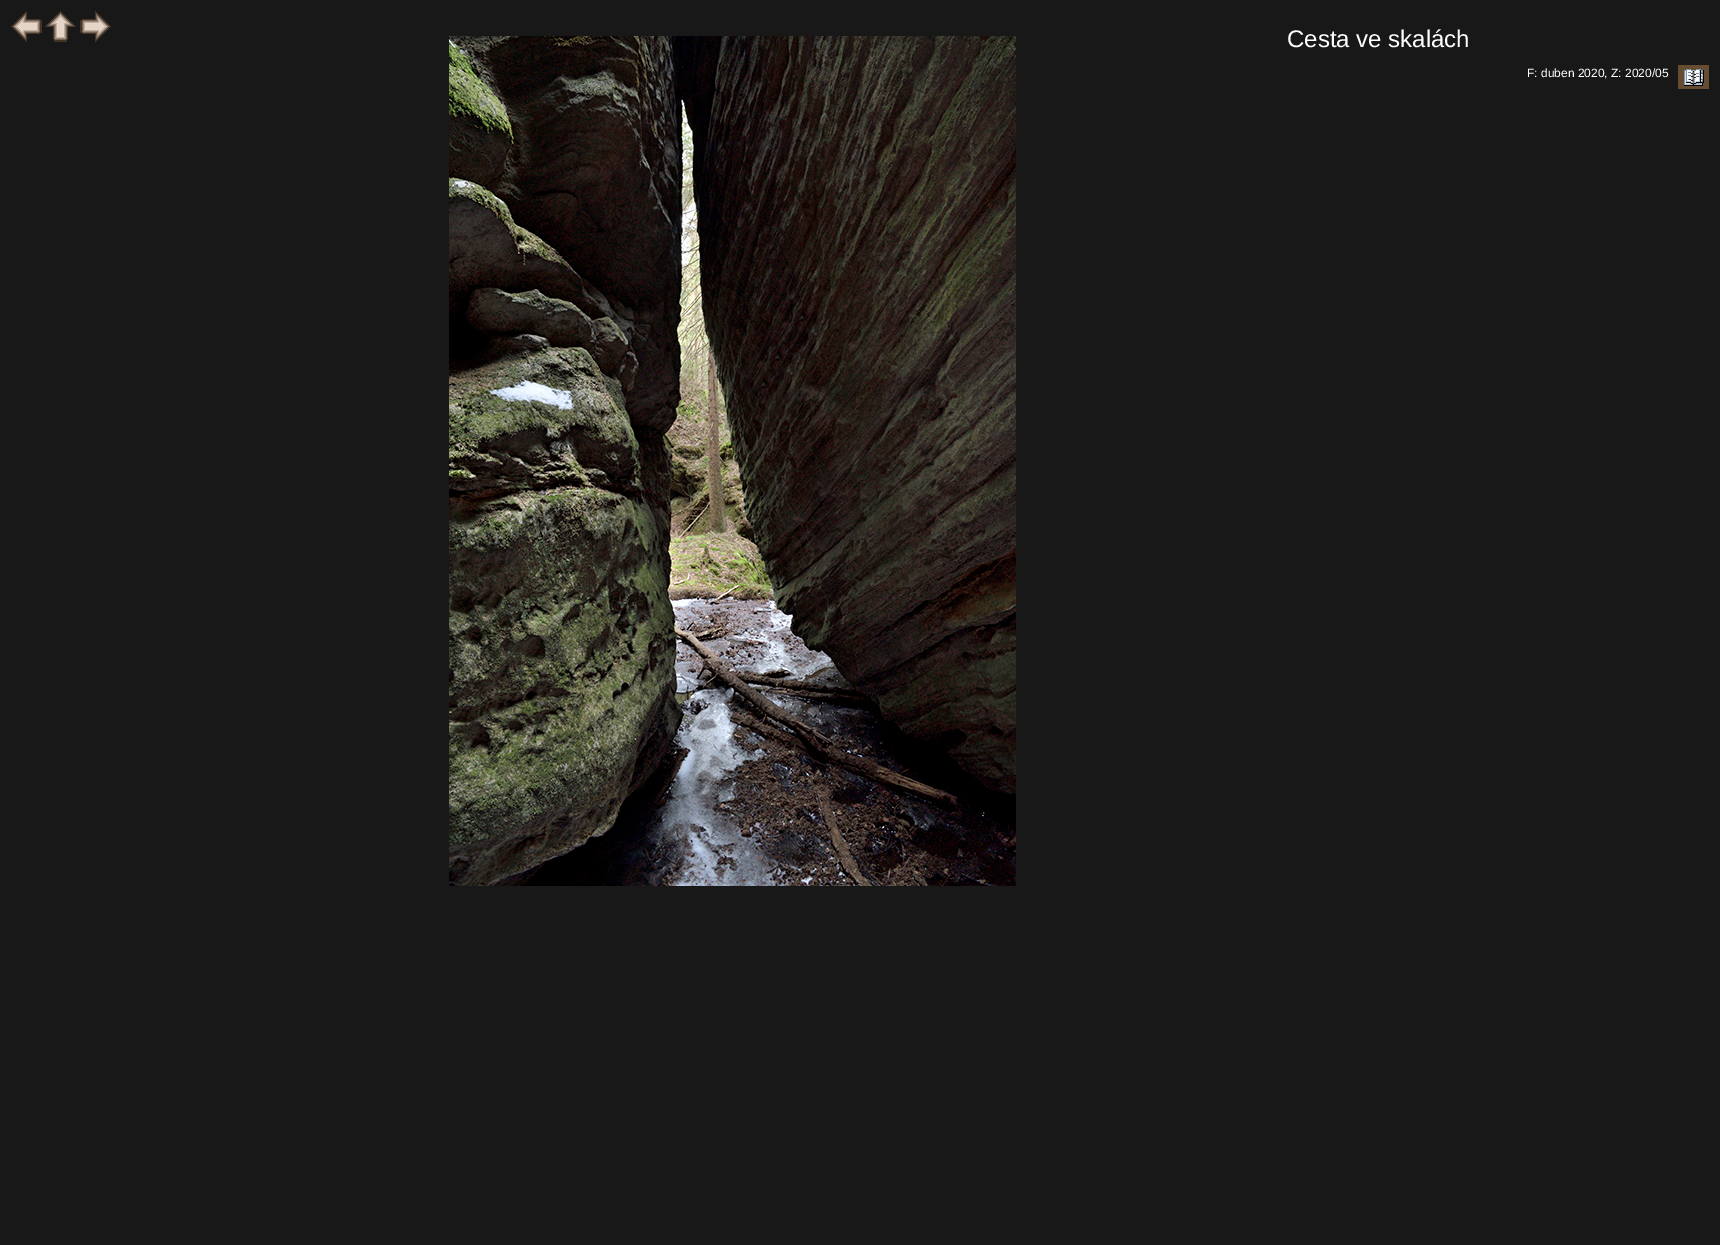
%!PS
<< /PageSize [1720 1245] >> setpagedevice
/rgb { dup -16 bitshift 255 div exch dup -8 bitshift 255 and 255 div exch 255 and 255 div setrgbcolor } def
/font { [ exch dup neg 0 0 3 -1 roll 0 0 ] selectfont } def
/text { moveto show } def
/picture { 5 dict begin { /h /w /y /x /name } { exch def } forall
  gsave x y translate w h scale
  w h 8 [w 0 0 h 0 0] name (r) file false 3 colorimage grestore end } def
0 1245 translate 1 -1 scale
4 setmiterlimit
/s1 { /LiberationSans-Regular 24 font 16#FFFFFF rgb } def
/s2 { /LiberationSans-Regular 12 font 16#FFFFFF rgb } def
16#181818 rgb
0 0 1720 1245 rectfill
(pic1.raw) 11 11 31 31 picture
(pic2.raw) 45 11 31 31 picture
(pic3.raw) 80 11 31 31 picture
(pic4.raw) 449 36 567 850 picture
s1
(Cesta ve skalách) 1287 47 text
s2
(F: duben 2020, Z: 2020/05) 1527 77 text
(pic5.raw) 1678 65 31 24 picture
showpage
